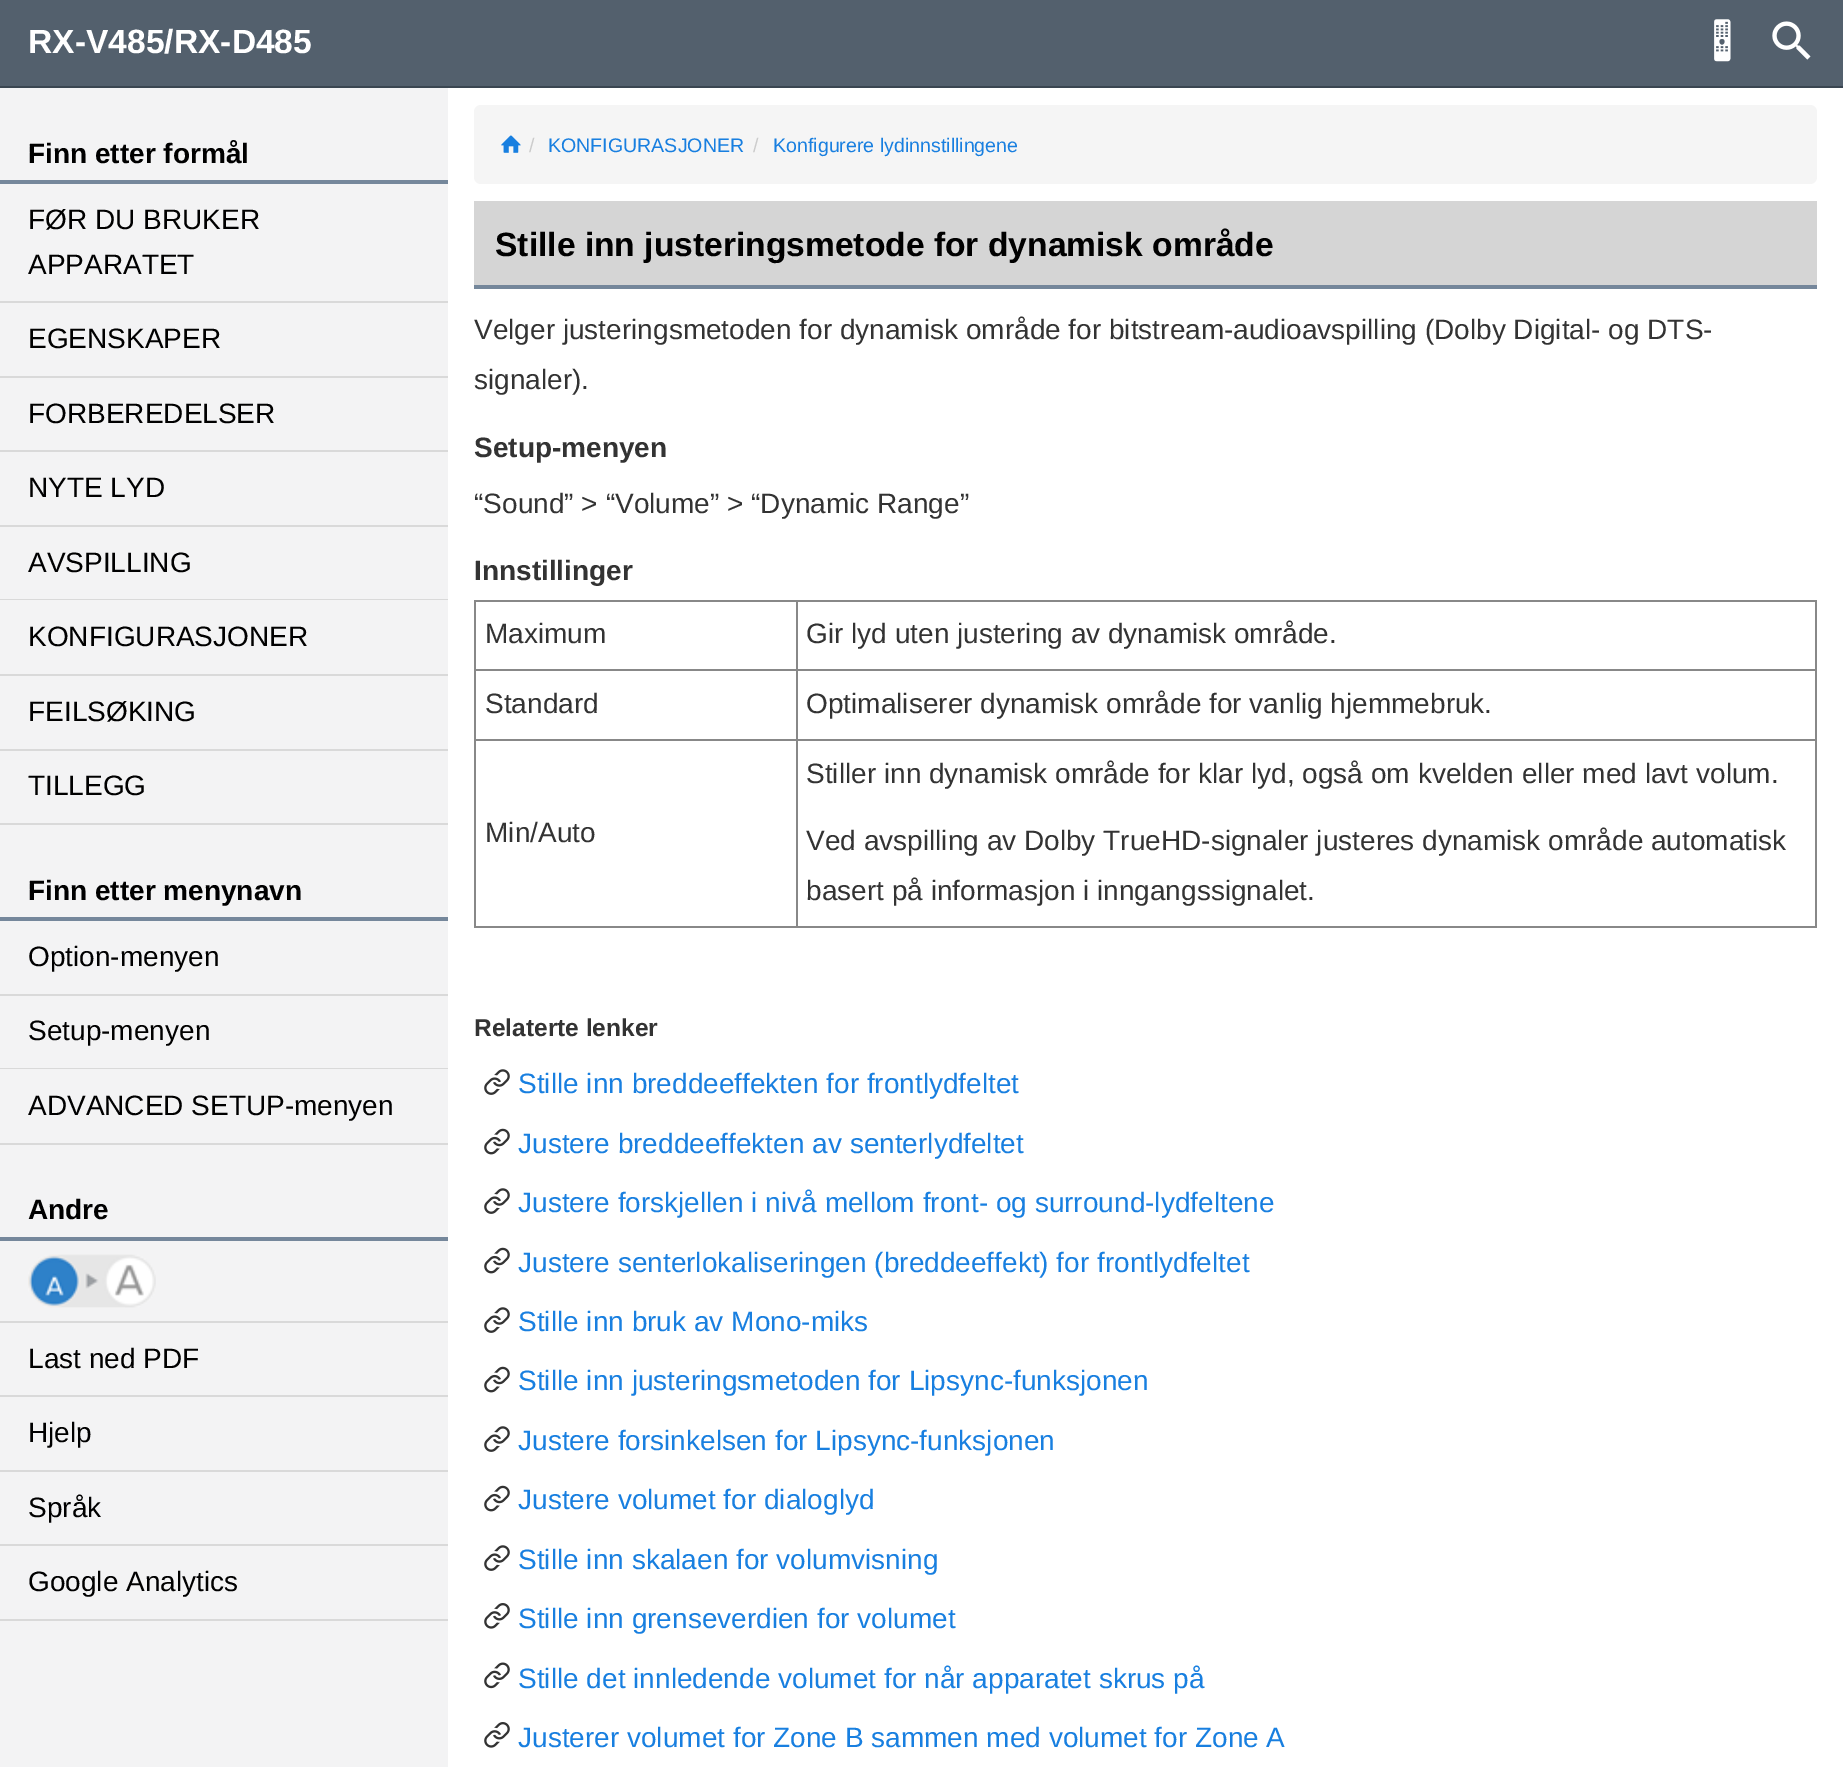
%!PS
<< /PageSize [1843 1767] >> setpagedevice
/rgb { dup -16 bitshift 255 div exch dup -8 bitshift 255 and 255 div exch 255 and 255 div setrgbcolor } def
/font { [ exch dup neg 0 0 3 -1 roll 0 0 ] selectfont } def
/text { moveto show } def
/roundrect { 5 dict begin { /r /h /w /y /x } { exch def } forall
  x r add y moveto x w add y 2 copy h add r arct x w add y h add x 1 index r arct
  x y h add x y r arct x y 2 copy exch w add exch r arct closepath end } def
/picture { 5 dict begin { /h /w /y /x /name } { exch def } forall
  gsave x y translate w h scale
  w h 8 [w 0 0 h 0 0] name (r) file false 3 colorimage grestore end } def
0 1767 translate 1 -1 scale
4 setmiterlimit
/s1 { /LiberationSans-Bold 33.6 font 16#FFFFFF rgb } def
/s2 { /LiberationSans-Regular 19.6 font 16#CCCCCC rgb } def
/s3 { /LiberationSans-Regular 19.6 font 16#187FE0 rgb } def
/s4 { /LiberationSans-Bold 33.6 font 16#000000 rgb } def
/s5 { /LiberationSans-Regular 28 font 16#333333 rgb } def
/s6 { /LiberationSans-Bold 28 font 16#333333 rgb } def
/s7 { /LiberationSans-Bold 24.5 font 16#333333 rgb } def
/s8 { /LiberationSans-Regular 28 font 16#187FE0 rgb } def
/s9 { /LiberationSans-Bold 28 font 16#000000 rgb } def
/s10 { /LiberationSans-Regular 28 font 16#000000 rgb } def
16#FFFFFF rgb
0 0 1843 1767 rectfill
16#53606D rgb
0 0 1843 86 rectfill
16#3A4651 rgb
0 86 1843 2 rectfill
s1
(RX-V485/RX-D485) 28 53 text
(pic1.raw) 1714 19 17 43 picture
(pic2.raw) 1772 21 39 39 picture
16#F5F5F5 rgb
474 105 1343 79 7 roundrect fill
(pic3.raw) 501 135 20 18 picture
s2
(/) 529 152 text
s3
(KONFIGURASJONER) 548 152 text
s2
(/) 753 152 text
s3
(Konfigurere lydinnstillingene) 773 152 text
16#D5D5D5 rgb
474 201 1343 84 rectfill
16#75879B rgb
474 285 1343 4 rectfill
s4
(Stille inn justeringsmetode for dynamisk område) 495 256 text
s5
(Velger justeringsmetoden for dynamisk område for bitstream-audioavspilling \(Dolby Digital- og DTS-) 474 339 text
(signaler\).) 474 389 text
s6
(Setup-menyen) 474 457 text
s5
(“Sound” > “Volume” > “Dynamic Range”) 474 513 text
s6
(Innstillinger) 474 580 text
16#888888 rgb
796 600 1021 2 rectfill
796 669 1021 2 rectfill
796 739 1021 2 rectfill
1815 739 2 189 rectfill
796 926 1021 2 rectfill
796 739 2 189 rectfill
474 739 324 2 rectfill
796 669 2 71 rectfill
474 669 324 2 rectfill
796 600 2 70 rectfill
474 600 324 2 rectfill
474 926 324 2 rectfill
474 739 2 189 rectfill
474 669 2 71 rectfill
474 600 2 70 rectfill
s5
(Maximum) 485 643 text
16#888888 rgb
1815 669 2 71 rectfill
1815 600 2 70 rectfill
s5
(Gir lyd uten justering av dynamisk område.) 806 643 text
(Standard) 485 713 text
(Optimaliserer dynamisk område for vanlig hjemmebruk.) 806 713 text
(Min/Auto) 485 842 text
(Stiller inn dynamisk område for klar lyd, også om kvelden eller med lavt volum.) 806 783 text
(Ved avspilling av Dolby TrueHD-signaler justeres dynamisk område automatisk) 806 850 text
(basert på informasjon i inngangssignalet.) 806 900 text
s7
(Relaterte lenker) 474 1036 text
(pic4.raw) 484 1069 26 26 picture
s8
(Stille inn breddeeffekten for frontlydfeltet) 518 1093 text
(pic5.raw) 484 1128 26 27 picture
(Justere breddeeffekten av senterlydfeltet) 518 1153 text
(pic4.raw) 484 1188 26 26 picture
(Justere forskjellen i nivå mellom front- og surround-lydfeltene) 518 1212 text
(pic5.raw) 484 1247 26 27 picture
(Justere senterlokaliseringen \(breddeeffekt\) for frontlydfeltet) 518 1272 text
(pic4.raw) 484 1307 26 26 picture
(Stille inn bruk av Mono-miks) 518 1331 text
(pic5.raw) 484 1366 26 27 picture
(Stille inn justeringsmetoden for Lipsync-funksjonen) 518 1390 text
(pic4.raw) 484 1426 26 26 picture
(Justere forsinkelsen for Lipsync-funksjonen) 518 1450 text
(pic5.raw) 484 1485 26 27 picture
(Justere volumet for dialoglyd) 518 1509 text
(pic4.raw) 484 1545 26 26 picture
(Stille inn skalaen for volumvisning) 518 1569 text
(pic6.raw) 484 1603 26 26 picture
(Stille inn grenseverdien for volumet) 518 1628 text
(pic7.raw) 484 1662 26 27 picture
(Stille det innledende volumet for når apparatet skrus på) 518 1688 text
(pic6.raw) 484 1722 26 26 picture
(Justerer volumet for Zone B sammen med volumet for Zone A) 518 1747 text
16#F3F3F4 rgb
0 88 448 1679 rectfill
16#75879B rgb
0 180 448 4 rectfill
s9
(Finn etter formål) 28 163 text
16#D9D9D9 rgb
0 301 448 2 rectfill
s10
(FØR DU BRUKER) 28 229 text
(APPARATET) 28 274 text
16#D9D9D9 rgb
0 376 448 2 rectfill
s10
(EGENSKAPER) 28 348 text
16#D9D9D9 rgb
0 450 448 2 rectfill
s10
(FORBEREDELSER) 28 423 text
16#D9D9D9 rgb
0 525 448 2 rectfill
s10
(NYTE LYD) 28 497 text
16#D9D9D9 rgb
0 599 448 1 rectfill
s10
(AVSPILLING) 28 572 text
16#D9D9D9 rgb
0 674 448 2 rectfill
s10
(KONFIGURASJONER) 28 646 text
16#D9D9D9 rgb
0 749 448 2 rectfill
s10
(FEILSØKING) 28 721 text
16#D9D9D9 rgb
0 823 448 2 rectfill
s10
(TILLEGG) 28 795 text
16#75879B rgb
0 917 448 4 rectfill
s9
(Finn etter menynavn) 28 900 text
16#D9D9D9 rgb
0 994 448 2 rectfill
s10
(Option-menyen) 28 966 text
16#D9D9D9 rgb
0 1068 448 1 rectfill
s10
(Setup-menyen) 28 1040 text
16#D9D9D9 rgb
0 1143 448 2 rectfill
s10
(ADVANCED SETUP-menyen) 28 1115 text
16#75879B rgb
0 1237 448 4 rectfill
s9
(Andre) 28 1219 text
16#D9D9D9 rgb
0 1321 448 2 rectfill
(pic8.raw) 28 1254 128 54 picture
0 1395 448 2 rectfill
s10
(Last ned PDF) 28 1368 text
16#D9D9D9 rgb
0 1470 448 2 rectfill
s10
(Hjelp) 28 1442 text
16#D9D9D9 rgb
0 1544 448 2 rectfill
s10
(Språk) 28 1517 text
16#D9D9D9 rgb
0 1619 448 2 rectfill
s10
(Google Analytics) 28 1591 text
showpage
